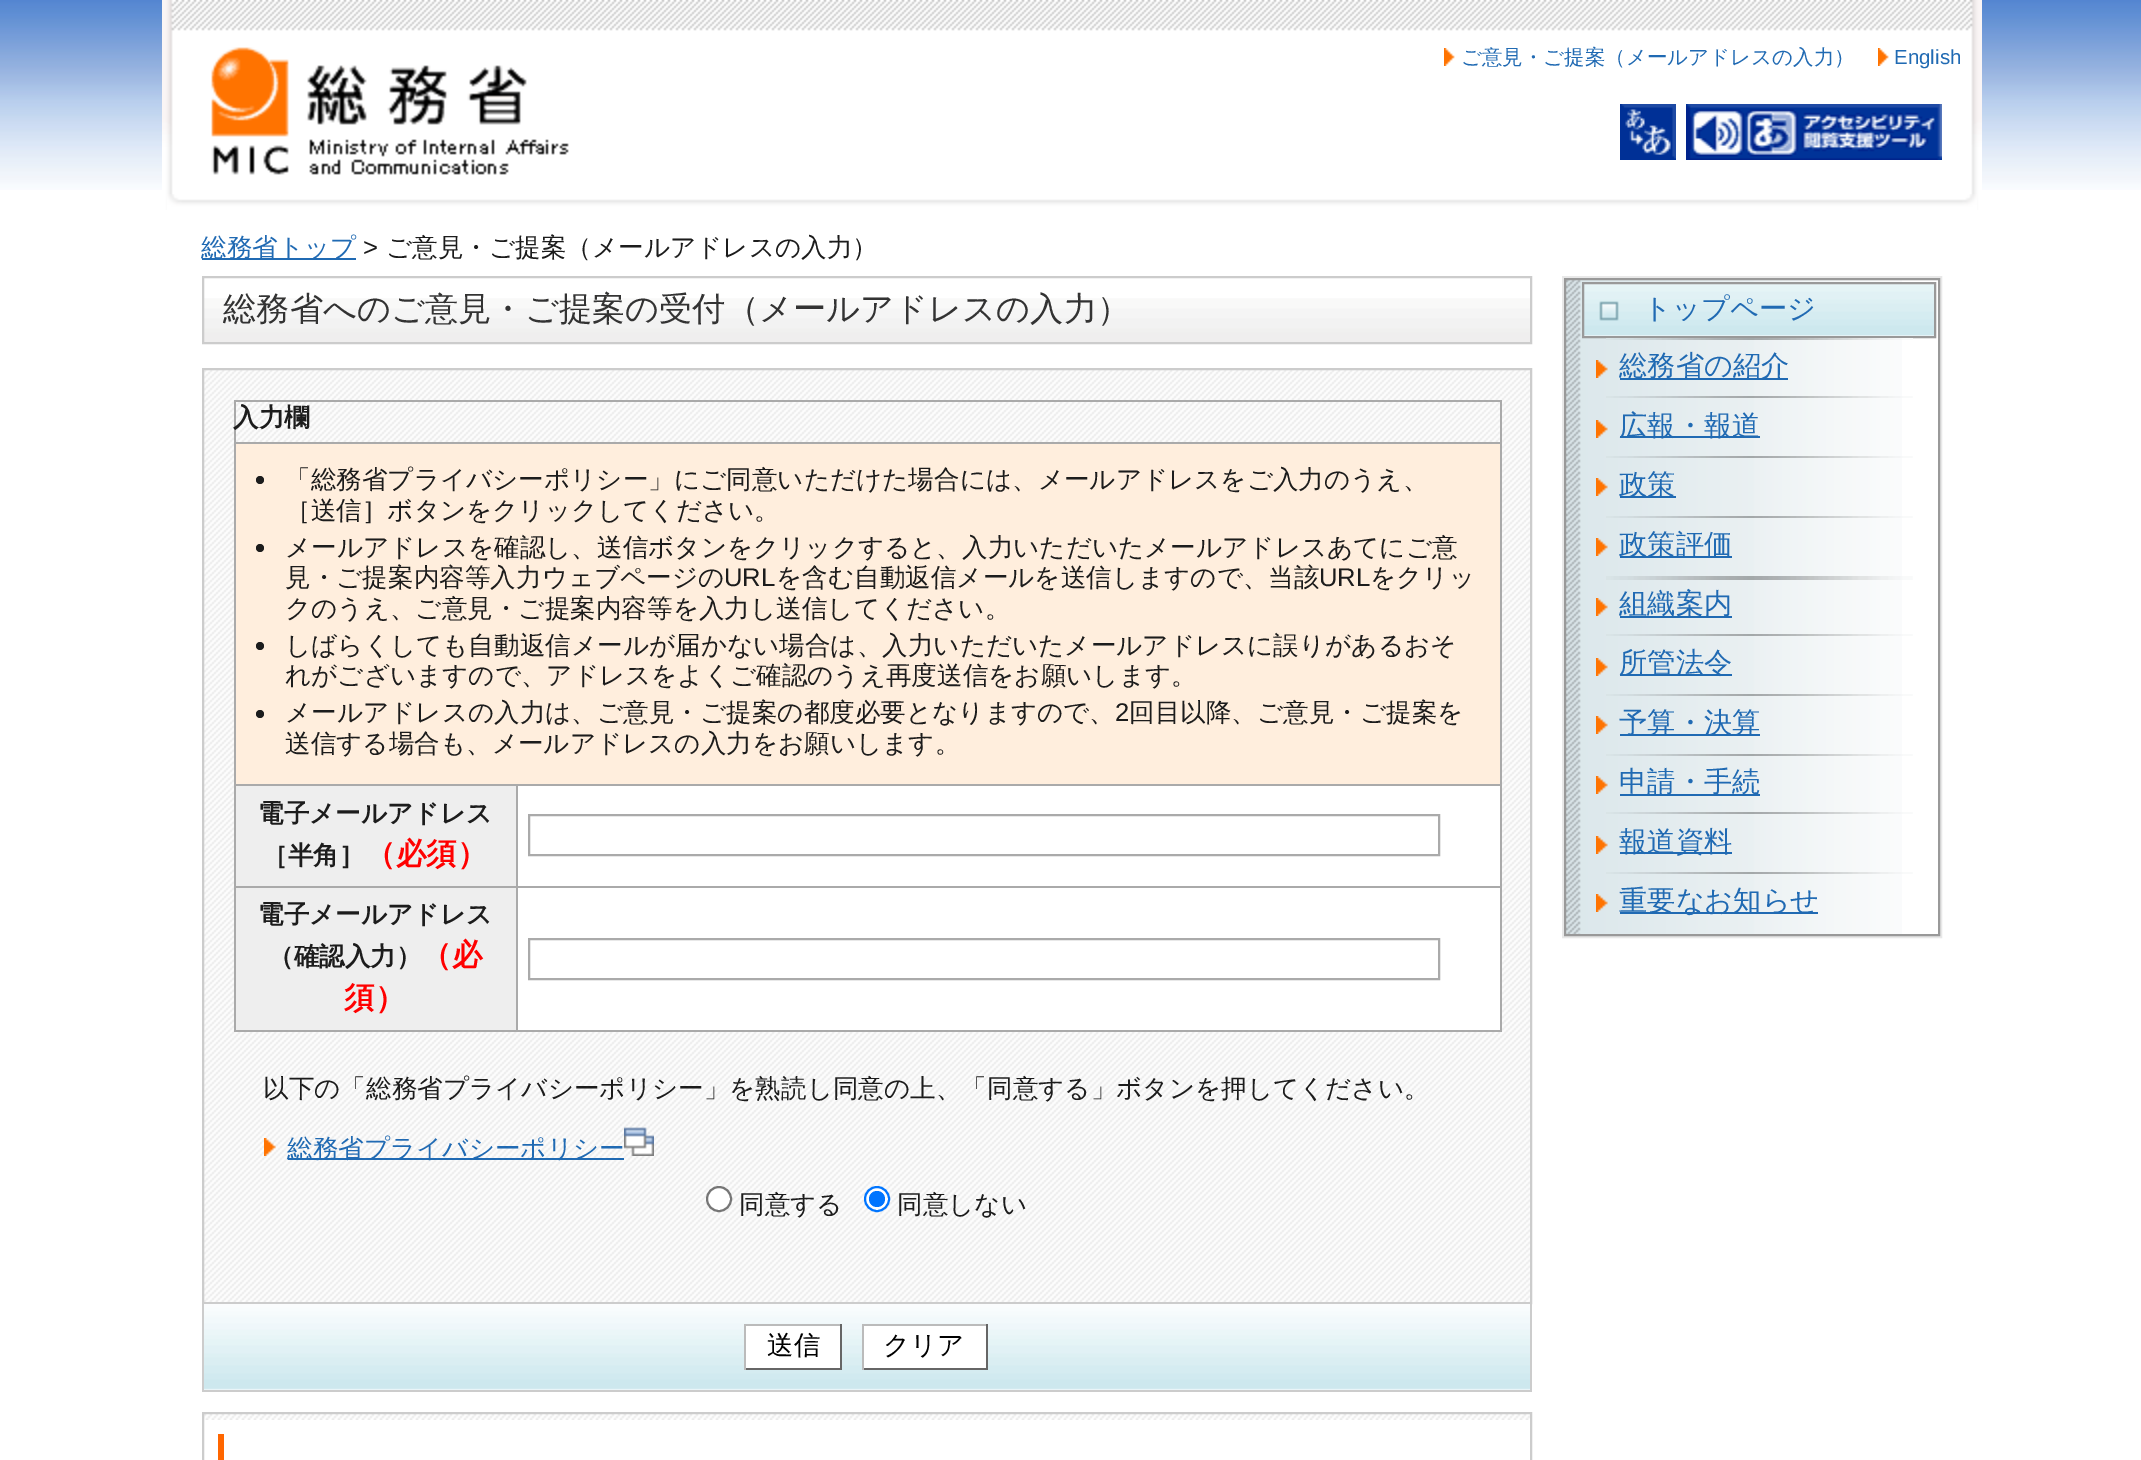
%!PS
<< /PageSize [2141 1460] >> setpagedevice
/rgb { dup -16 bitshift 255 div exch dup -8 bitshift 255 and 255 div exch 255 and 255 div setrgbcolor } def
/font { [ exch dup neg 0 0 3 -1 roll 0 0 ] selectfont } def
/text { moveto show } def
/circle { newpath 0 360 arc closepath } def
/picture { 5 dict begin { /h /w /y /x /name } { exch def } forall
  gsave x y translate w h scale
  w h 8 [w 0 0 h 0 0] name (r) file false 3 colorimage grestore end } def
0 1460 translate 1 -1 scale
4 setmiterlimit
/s1 { /WenQuanYiZenHei-Medium 20.5 font 16#206AB3 rgb } def
/s2 { /LiberationSans-Regular 20.5 font 16#206AB3 rgb } def
/s3 { /WenQuanYiZenHei-Medium 25.6 font 16#206AB3 rgb } def
/s4 { /LiberationSans-Regular 25.6 font 16#1C1C1C rgb } def
/s5 { /WenQuanYiZenHei-Medium 25.6 font 16#1C1C1C rgb } def
/s6 { /WenQuanYiZenHei-Medium 33.25 font 16#333333 rgb } def
/s7 { /WenQuanYiZenHei-Bold 25.6 font 16#1C1C1C rgb } def
/s8 { /WenQuanYiZenHei-Bold 30.5 font 16#FF0000 rgb } def
/s9 { /WenQuanYiZenHei-Medium 26.5 font 16#000000 rgb } def
/s10 { /WenQuanYiZenHei-Medium 28.25 font 16#206AB3 rgb } def
16#FFFFFF rgb
0 0 2141 1460 rectfill
(pic1.raw) 0 0 2141 190 picture
(pic2.raw) 162 0 1820 210 picture
(pic3.raw) 167 194 1810 16 picture
(pic4.raw) 211 47 358 128 picture
(pic5.raw) 1444 48 11 18 picture
s1
(ご意見・ご提案（メールアドレスの入力）) 1461 64 text
(pic5.raw) 1878 48 11 18 picture
s2
(English) 1894 64 text
(pic6.raw) 1620 104 56 56 picture
(pic7.raw) 1686 104 256 56 picture
202 258 154 2 rectfill
s3
(総務省トップ) 201 256 text
s4
(>) 363 256 text
s5
(ご意見・ご提案（メールアドレスの入力）) 386 256 text
(pic8.raw) 204 298 1326 44 picture
16#CCCCCC rgb
2 setlinewidth
203 277 1328 66 rectstroke
s6
(総務省へのご意見・ご提案の受付（メールアドレスの入力）) 223 320 text
(pic9.raw) 204 370 1326 932 picture
16#CCCCCC rgb
203 369 1328 934 rectstroke
16#AAAAAA rgb
234 400 1268 2 rectfill
1500 400 2 632 rectfill
234 1030 1268 2 rectfill
234 400 2 632 rectfill
s7
(入力欄) 233 426 text
16#FFEEDD rgb
236 444 1264 340 rectfill
16#AAAAAA rgb
234 442 1268 2 rectfill
16#1C1C1C rgb
260 480 4 circle fill
s5
(「総務省プライバシーポリシー」にご同意いただけた場合には、メールアドレスをご入力のうえ、) 285 488 text
(［送信］ボタンをクリックしてください。) 285 519 text
260 548 4 circle fill
(メールアドレスを確認し、送信ボタンをクリックすると、入力いただいたメールアドレスあてにご意) 285 556 text
(見・ご提案内容等入力ウェブページの) 285 586 text
s4
(URL) 724 586 text
s5
(を含む自動返信メールを送信しますので、当該) 776 586 text
s4
(URL) 1319 586 text
s5
(をクリッ) 1370 586 text
(クのうえ、ご意見・ご提案内容等を入力し送信してください。) 285 617 text
260 646 4 circle fill
(しばらくしても自動返信メールが届かない場合は、入力いただいたメールアドレスに誤りがあるおそ) 285 654 text
(れがございますので、アドレスをよくご確認のうえ再度送信をお願いします。) 285 684 text
260 714 4 circle fill
(メールアドレスの入力は、ご意見・ご提案の都度必要となりますので、) 285 721 text
s4
(2) 1115 721 text
s5
(回目以降、ご意見・ご提案を) 1129 721 text
(送信する場合も、メールアドレスの入力をお願いします。) 285 752 text
16#EEEEEE rgb
236 786 280 100 rectfill
16#AAAAAA rgb
516 784 986 2 rectfill
516 886 986 2 rectfill
516 886 2 146 rectfill
234 886 284 2 rectfill
516 784 2 104 rectfill
234 784 284 2 rectfill
s7
(電子メールアドレス) 258 822 text
(［半角］) 262 864 text
s8
(（必須）) 365 864 text
16#FFFFFF rgb
518 786 982 100 rectfill
16#AAAAAA rgb
529 815 910 40 rectstroke
16#EEEEEE rgb
236 888 280 142 rectfill
s7
(電子メールアドレス) 258 923 text
(（確認入力）) 268 965 text
s8
(（必) 421 965 text
(須）) 344 1008 text
16#FFFFFF rgb
518 888 982 142 rectfill
16#AAAAAA rgb
529 939 910 40 rectstroke
s5
(以下の「総務省プライバシーポリシー」を熟読し同意の上、「同意する」ボタンを押してください。) 263 1097 text
(pic10.raw) 264 1138 12 18 picture
16#206AB3 rgb
288 1158 336 2 rectfill
(総務省プライバシーポリシー) 287 1157 text
(pic11.raw) 624 1127 30 29 picture
16#FFFFFF rgb
719 1199 12 circle gsave fill grestore
16#767676 rgb
stroke
s5
(同意する) 739 1213 text
16#FFFFFF rgb
877 1199 12 circle gsave fill grestore
16#0075FF rgb
stroke
877 1199 8 circle fill
s5
(同意しない) 897 1213 text
(pic12.raw) 204 1304 1326 86 picture
16#CCCCCC rgb
1530 1304 2 88 rectfill
202 1390 1330 2 rectfill
202 1304 2 88 rectfill
16#FFFFFF rgb
746 1326 94 42 rectfill
16#BBBBBB rgb
744 1324 98 2 rectfill
16#666666 rgb
840 1324 2 46 rectfill
744 1368 98 2 rectfill
16#BBBBBB rgb
744 1324 2 46 rectfill
s9
(送信) 767 1354 text
16#FFFFFF rgb
864 1326 122 42 rectfill
16#BBBBBB rgb
862 1324 126 2 rectfill
16#666666 rgb
986 1324 2 46 rectfill
862 1368 126 2 rectfill
16#BBBBBB rgb
862 1324 2 46 rectfill
s9
(クリア) 883 1354 text
(pic13.raw) 204 1414 1326 6 picture
16#CCCCCC rgb
203 1413 1328 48 rectstroke
16#FF6600 rgb
218 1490 moveto 218 1434 lineto 224 1434 lineto 224 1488 lineto closepath fill
16#E8E8E8 rgb
1563 277 378 660 rectstroke
(pic14.raw) 1566 280 336 654 picture
16#999999 rgb
1565 279 374 656 rectstroke
(pic15.raw) 1584 284 350 52 picture
1583 283 352 54 rectstroke
(pic16.raw) 1599 301 20 20 picture
s10
(トップページ) 1643 318 text
(pic17.raw) 1606 338 307 2 picture
(pic18.raw) 1596 360 12 18 picture
1620 378 168 2 rectfill
(総務省の紹介) 1619 375 text
(pic17.raw) 1606 396 307 2 picture
(pic18.raw) 1596 420 12 18 picture
1620 436 140 2 rectfill
(広報・報道) 1619 435 text
(pic17.raw) 1606 456 307 2 picture
(pic18.raw) 1596 478 12 18 picture
1620 496 56 2 rectfill
(政策) 1619 494 text
(pic17.raw) 1606 516 307 2 picture
(pic18.raw) 1596 538 12 18 picture
1620 556 112 2 rectfill
(政策評価) 1619 554 text
(pic19.raw) 1606 576 307 4 picture
(pic18.raw) 1596 598 12 18 picture
1620 616 112 2 rectfill
(組織案内) 1619 613 text
(pic17.raw) 1606 634 307 2 picture
(pic18.raw) 1596 658 12 18 picture
1620 674 112 2 rectfill
(所管法令) 1619 672 text
(pic17.raw) 1606 694 307 2 picture
(pic18.raw) 1596 716 12 18 picture
1620 734 140 2 rectfill
(予算・決算) 1619 732 text
(pic17.raw) 1606 754 307 2 picture
(pic18.raw) 1596 776 12 18 picture
1620 794 140 2 rectfill
(申請・手続) 1619 791 text
(pic17.raw) 1606 812 307 2 picture
(pic18.raw) 1596 836 12 18 picture
1620 852 112 2 rectfill
(報道資料) 1619 851 text
(pic17.raw) 1606 872 307 2 picture
(pic18.raw) 1596 894 12 18 picture
1620 912 198 2 rectfill
(重要なお知らせ) 1619 910 text
showpage
